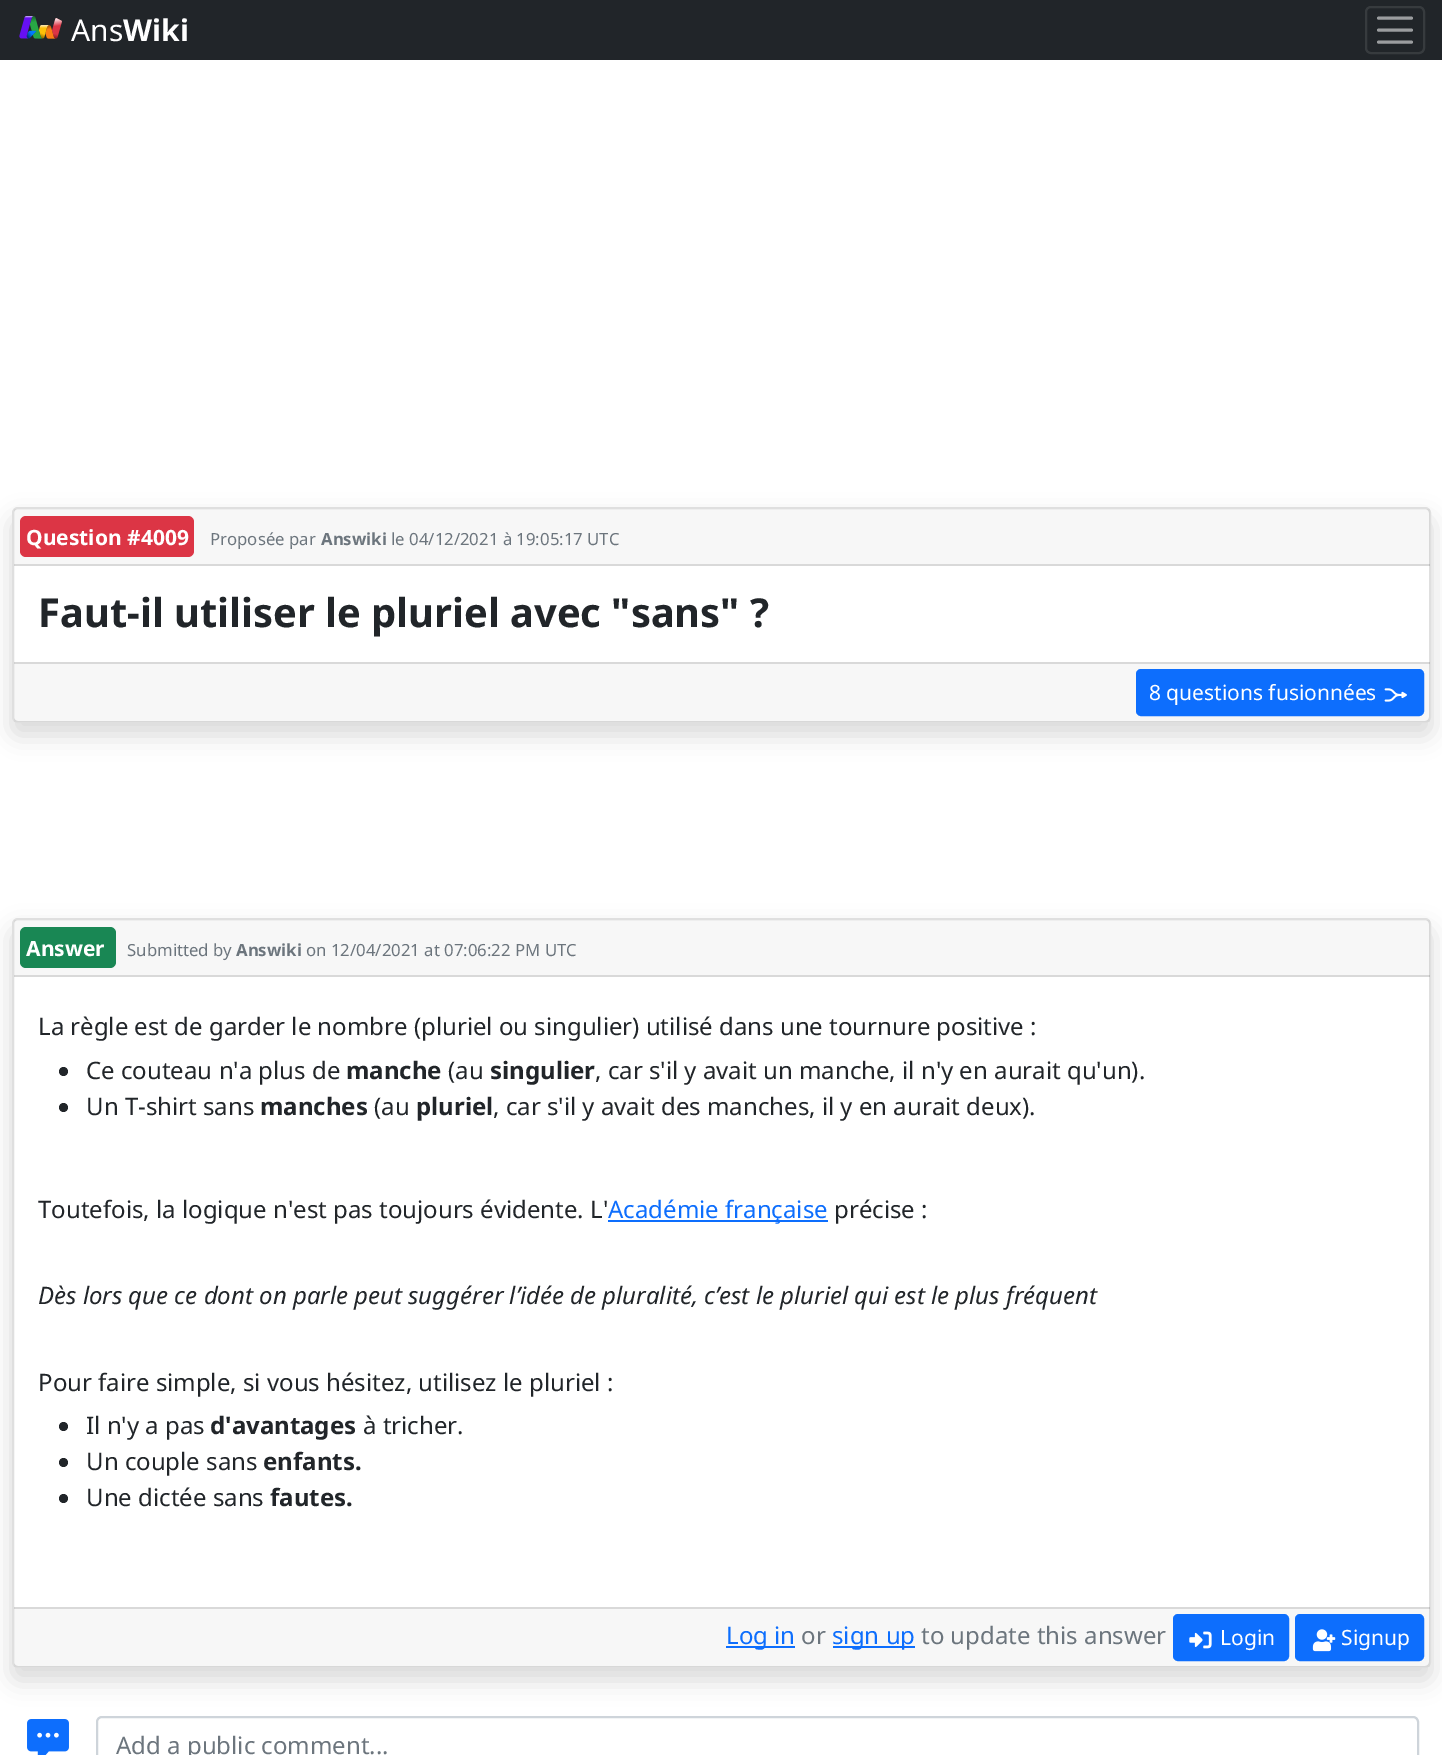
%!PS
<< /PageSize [1442 1755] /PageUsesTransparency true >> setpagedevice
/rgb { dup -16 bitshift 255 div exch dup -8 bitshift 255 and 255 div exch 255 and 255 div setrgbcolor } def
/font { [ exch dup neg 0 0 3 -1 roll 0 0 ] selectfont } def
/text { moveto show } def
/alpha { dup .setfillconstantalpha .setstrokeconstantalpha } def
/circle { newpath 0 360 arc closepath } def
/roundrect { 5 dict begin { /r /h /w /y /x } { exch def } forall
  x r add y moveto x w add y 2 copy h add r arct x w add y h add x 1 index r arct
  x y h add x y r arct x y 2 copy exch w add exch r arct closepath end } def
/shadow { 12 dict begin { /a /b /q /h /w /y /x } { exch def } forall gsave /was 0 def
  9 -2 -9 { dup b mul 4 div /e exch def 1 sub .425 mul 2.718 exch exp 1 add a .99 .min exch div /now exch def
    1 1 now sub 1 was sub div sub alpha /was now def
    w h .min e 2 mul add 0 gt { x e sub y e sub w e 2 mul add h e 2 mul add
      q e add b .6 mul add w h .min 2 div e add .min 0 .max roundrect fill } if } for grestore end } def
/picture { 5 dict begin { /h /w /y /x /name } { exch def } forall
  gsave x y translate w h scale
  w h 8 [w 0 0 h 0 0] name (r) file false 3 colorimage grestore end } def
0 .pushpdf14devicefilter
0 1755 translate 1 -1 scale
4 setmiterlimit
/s1 { /NotoSans-Regular 30 font 16#FFFFFF rgb } def
/s2 { /NotoSans-Bold 30 font 16#FFFFFF rgb } def
/s3 { /NotoSans-Bold 21 font 16#FFFFFF rgb } def
/s4 { /NotoSans-Regular 16.75 font 16#6C757D rgb } def
/s5 { /NotoSans-Bold 16.75 font 16#6C757D rgb } def
/s6 { /NotoSans-Bold 39.9 font 16#212529 rgb } def
/s7 { /NotoSans-Regular 21 font 16#FFFFFF rgb } def
/s8 { /NotoSans-Regular 24 font 16#212529 rgb } def
/s9 { /NotoSans-Bold 24 font 16#212529 rgb } def
/s10 { /NotoSans-Regular 24 font 16#0D6EFD rgb } def
/s11 { /NotoSans-Italic 24 font 16#212529 rgb } def
/s12 { /NotoSans-Regular 24 font 16#6C757D rgb } def
16#FFFFFF rgb
0 0 1442 1755 rectfill
16#212529 rgb
0 0 1442 60 rectfill
(pic1.raw) 19 16 43 23 picture
s1
(Ans) 71 41 text
s2
(Wiki) 123 41 text
16#373B3E rgb
2 setlinewidth
1366 7 58 46 5 roundrect stroke
16#9B9D9F rgb
3 setlinewidth
1 setlinecap
1378.5 18 moveto 1411.5 18 lineto 1378.5 30 moveto 1411.5 30 lineto 1378.5 42 moveto 1411.5 42 lineto stroke
16#000000 rgb
12 519 1419 216 6 12 0.15 shadow
16#FFFFFF rgb
13 508 1417 214 5 roundrect gsave fill grestore
16#DFDFDF rgb
2 setlinewidth
0 setlinecap
stroke
0.03 alpha
16#000000 rgb
14 509 1416 57 rectfill
0.12 alpha
14 564 1416 2 rectfill
1 alpha
16#DC3545 rgb
20 516 174 41 6 roundrect fill
s3
(Question #4009) 26 545 text
s4
(Proposée par) 210 545 text
s5
(Answiki) 321 545 text
s4
(le 04/12/2021 à 19:05:17 UTC) 391 545 text
s6
(Faut-il utiliser le pluriel avec "sans" ?) 38 627 text
0.03 alpha
16#000000 rgb
14 662 1416 60 rectfill
0.12 alpha
14 662 1416 2 rectfill
1 alpha
16#0D6EFD rgb
1137 670 286 45 4 roundrect gsave fill grestore
stroke
s7
(8 questions fusionnées) 1149 700 text
(pic2.raw) 1384 688 23 14 picture
16#CED4DA rgb
97 1717 1321 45 5 roundrect stroke
16#000000 rgb
12 930 1419 750 6 12 0.15 shadow
16#FFFFFF rgb
13 919 1417 748 5 roundrect gsave fill grestore
16#DFDFDF rgb
stroke
0.03 alpha
16#000000 rgb
14 920 1416 57 rectfill
0.12 alpha
14 975 1416 2 rectfill
1 alpha
16#198754 rgb
20 927 96 41 6 roundrect fill
s3
(Answer) 26 956 text
s4
(Submitted by) 127 956 text
s5
(Answiki) 236 956 text
s4
(on 12/04/2021 at 07:06:22 PM UTC) 306 956 text
s8
(La règle est de garder le nombre \(pluriel ou singulier\) utilisé dans une tournure positive :) 38 1035 text
63.5 1071.5 4.5 circle fill
(Ce couteau n'a plus de) 86 1079 text
s9
(manche) 346 1079 text
s8
(\(au) 448 1079 text
s9
(singulier) 490 1079 text
s8
(, car s'il y avait un manche, il n'y en aurait qu'un\).) 595 1079 text
63.5 1107.5 4.5 circle fill
(Un T-shirt sans) 86 1115 text
s9
(manches) 260 1115 text
s8
(\(au) 374 1115 text
s9
(pluriel) 416 1115 text
s8
(, car s'il y avait des manches, il y en aurait deux\).) 493 1115 text
(Toutefois, la logique n'est pas toujours évidente. L') 38 1218 text
16#0D6EFD rgb
608 1220 220 2 rectfill
(Académie française) 608 1218 text
s8
(précise :) 834 1218 text
s11
(Dès lors que ce dont on parle peut suggérer l’idée de pluralité, c’est le pluriel qui est le plus fréquent) 38 1304 text
s8
(Pour faire simple, si vous hésitez, utilisez le pluriel :) 38 1391 text
63.5 1426.5 4.5 circle fill
(Il n'y a pas) 86 1434 text
s9
(d'avantages) 210 1434 text
s8
(à tricher.) 363 1434 text
63.5 1462.5 4.5 circle fill
(Un couple sans) 86 1470 text
s9
(enfants.) 263 1470 text
63.5 1498.5 4.5 circle fill
s8
(Une dictée sans) 86 1506 text
s9
(fautes.) 270 1506 text
0.03 alpha
16#000000 rgb
14 1607 1416 60 rectfill
0.12 alpha
14 1607 1416 2 rectfill
1 alpha
16#0D6EFD rgb
726 1646 69 2 rectfill
s10
(Log in) 726 1644 text
s12
(or) 801 1644 text
16#0D6EFD rgb
833 1646 82 2 rectfill
(sign up) 832 1644 text
s12
(to update this answer) 921 1644 text
16#0D6EFD rgb
1174 1615 114 45 4 roundrect gsave fill grestore
stroke
(pic3.raw) 1189 1631 23 18 picture
s7
(Login) 1220 1645 text
16#0D6EFD rgb
1296 1615 127 45 4 roundrect gsave fill grestore
stroke
(pic4.raw) 1312 1629 24 23 picture
s7
(Signup) 1341 1645 text
(pic5.raw) 27 1719 42 36 picture
s12
(Add a public comment...) 116 1754 text
.poppdf14devicefilter showpage
